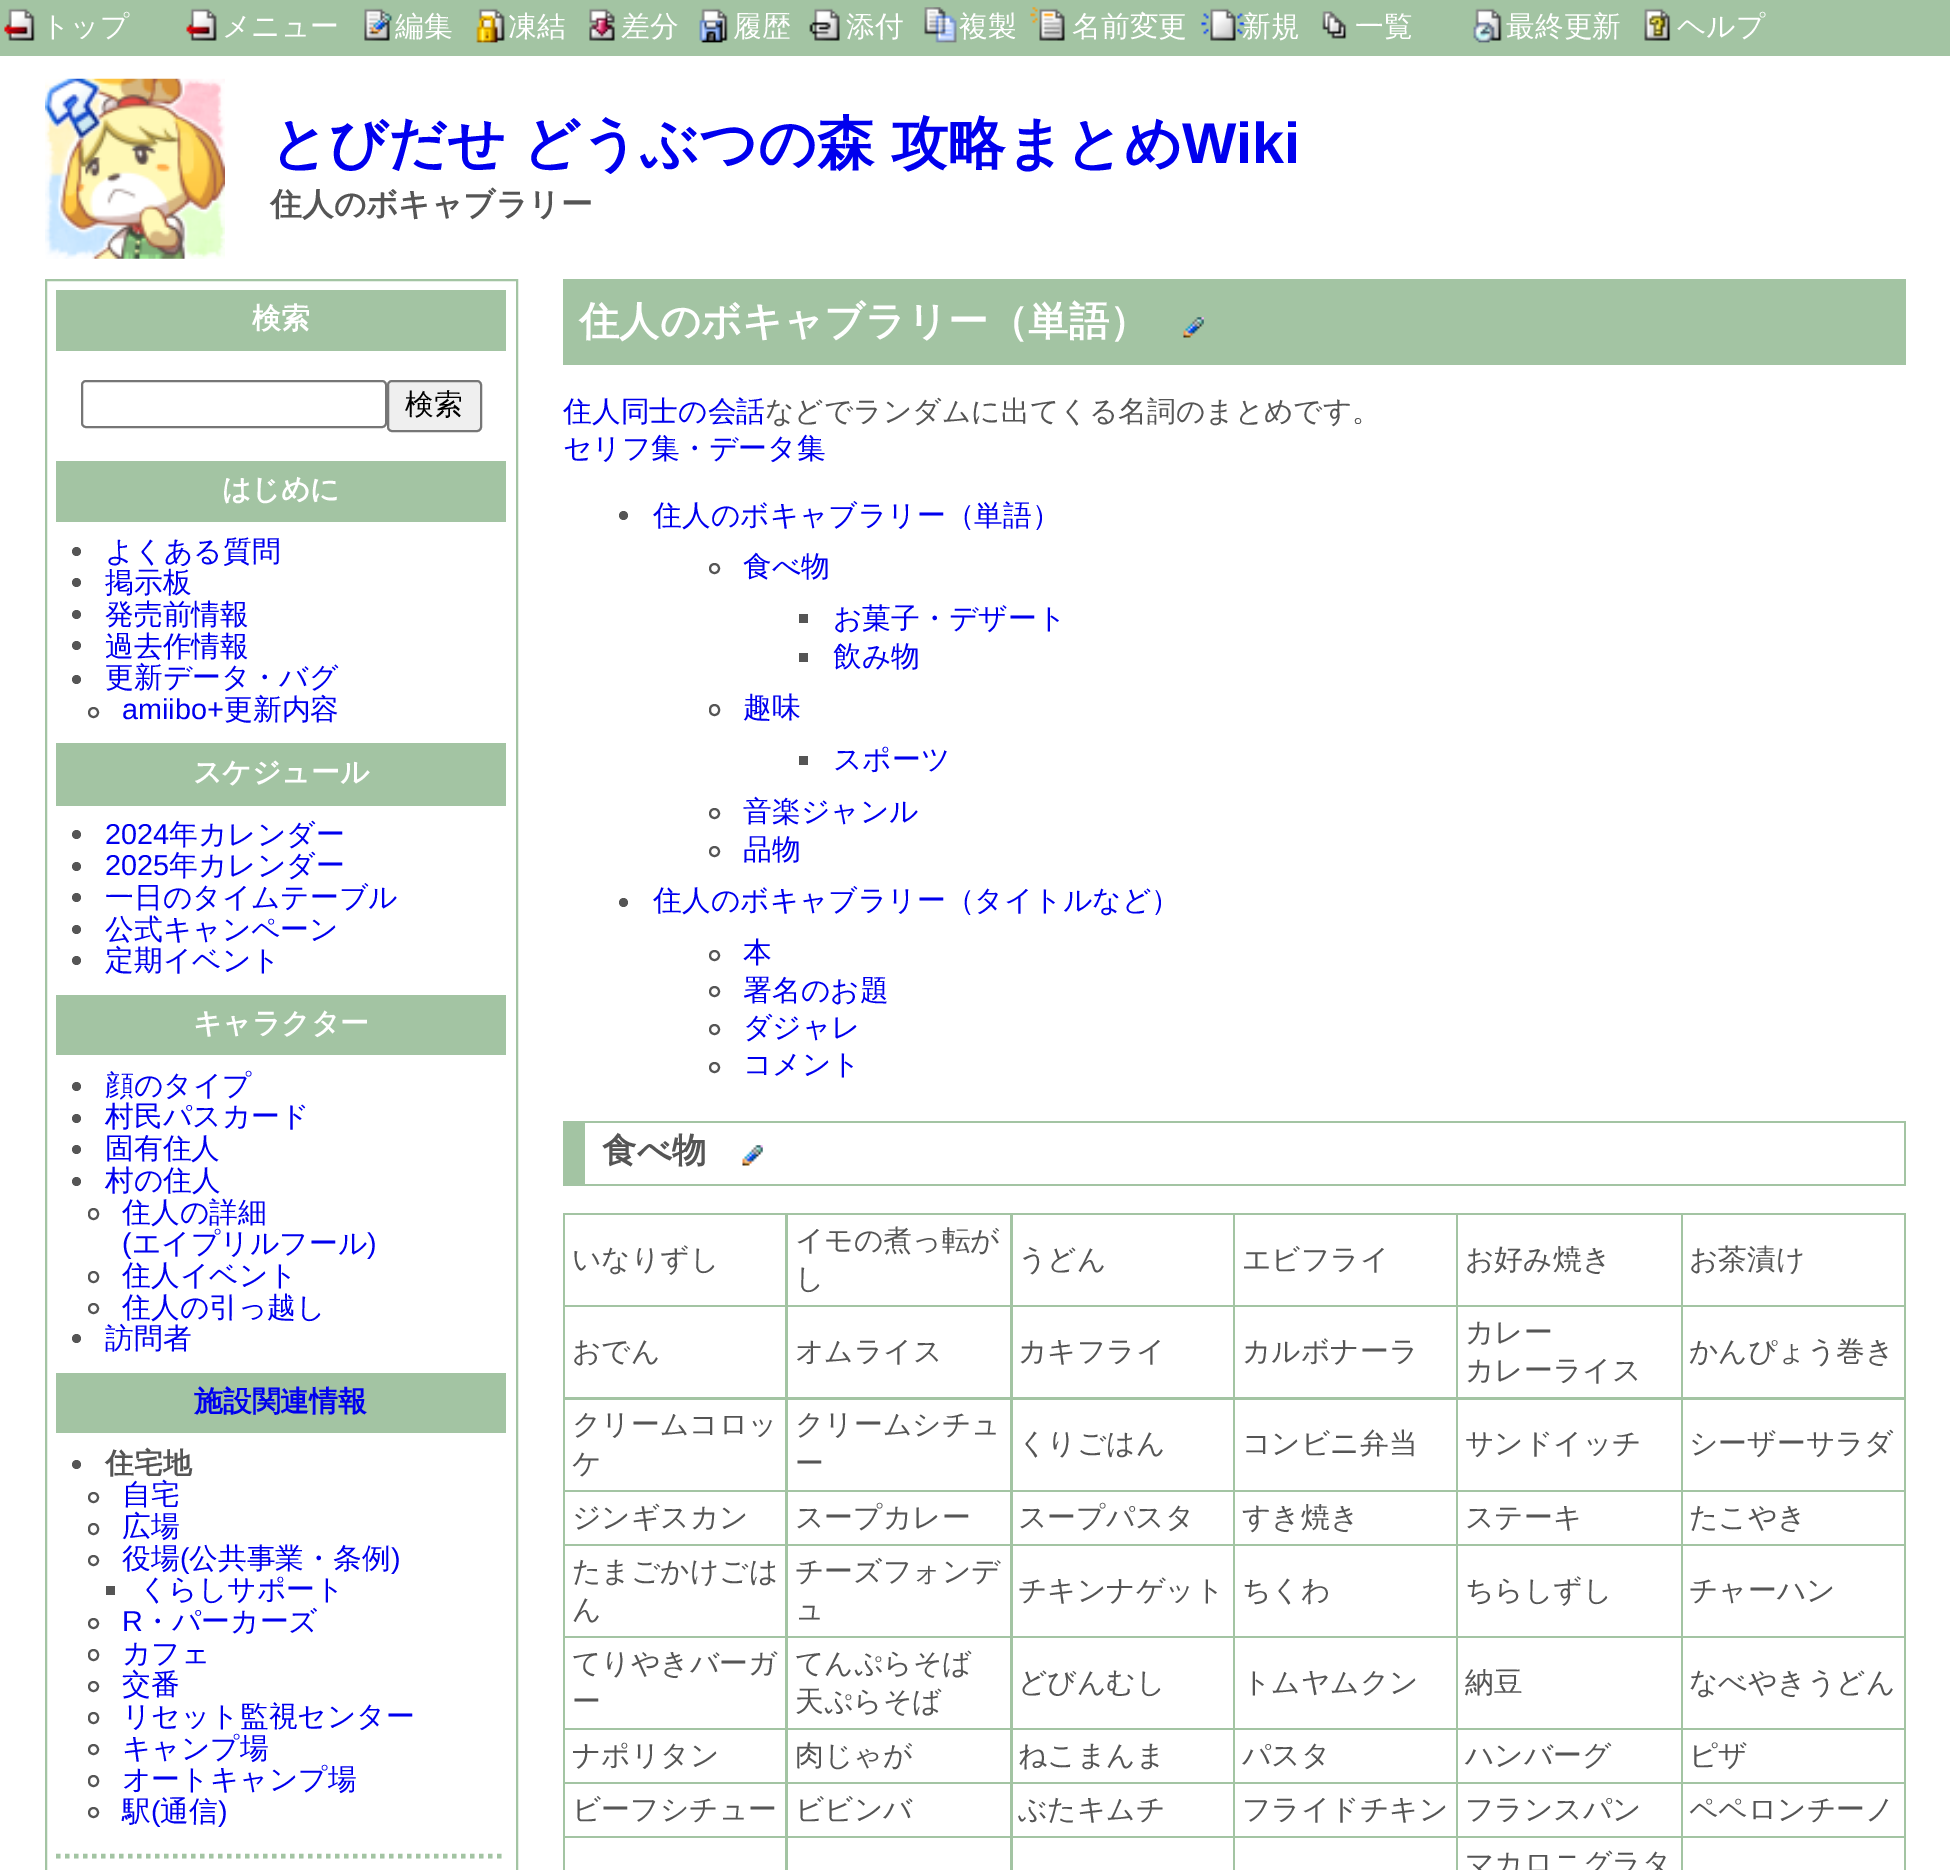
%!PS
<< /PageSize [1950 1870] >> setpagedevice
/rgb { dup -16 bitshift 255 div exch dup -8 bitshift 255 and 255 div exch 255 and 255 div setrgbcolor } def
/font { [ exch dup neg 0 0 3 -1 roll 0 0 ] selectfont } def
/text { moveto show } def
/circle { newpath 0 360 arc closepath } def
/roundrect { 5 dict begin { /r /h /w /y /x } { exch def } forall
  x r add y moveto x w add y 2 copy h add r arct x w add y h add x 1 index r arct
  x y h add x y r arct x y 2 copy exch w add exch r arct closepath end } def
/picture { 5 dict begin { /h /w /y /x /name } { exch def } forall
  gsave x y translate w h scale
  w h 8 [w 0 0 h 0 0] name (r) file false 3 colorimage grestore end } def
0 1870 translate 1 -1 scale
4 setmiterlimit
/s1 { /WenQuanYiZenHei-Medium 28.8 font 16#FFFFFF rgb } def
/s2 { /LiberationSans-Bold 57.6 font 16#0000EE rgb } def
/s3 { /WenQuanYiZenHei-Bold 31.75 font 16#555555 rgb } def
/s4 { /WenQuanYiZenHei-Bold 28.8 font 16#FFFFFF rgb } def
/s5 { /WenQuanYiZenHei-Medium 28.8 font 16#000000 rgb } def
/s6 { /WenQuanYiZenHei-Medium 28.8 font 16#0000EE rgb } def
/s7 { /LiberationSans-Regular 28.8 font 16#0000EE rgb } def
/s8 { /WenQuanYiZenHei-Bold 28.8 font 16#0000EE rgb } def
/s9 { /WenQuanYiZenHei-Bold 28.8 font 16#555555 rgb } def
/s10 { /WenQuanYiZenHei-Bold 40.25 font 16#FFFFFF rgb } def
/s11 { /WenQuanYiZenHei-Medium 28.8 font 16#555555 rgb } def
/s12 { /WenQuanYiZenHei-Bold 34.5 font 16#555555 rgb } def
16#FFFFFF rgb
0 0 1950 1870 rectfill
16#A3C4A3 rgb
0 0 1950 56 rectfill
(pic1.raw) 4 8 31 33 picture
s1
(トップ) 41 36 text
(pic2.raw) 186 8 31 33 picture
(メニュー) 222 36 text
(pic3.raw) 364 8 29 33 picture
(編集) 395 36 text
(pic4.raw) 476 8 29 35 picture
(凍結) 508 36 text
(pic5.raw) 589 8 26 33 picture
(差分) 621 36 text
(pic6.raw) 699 8 29 35 picture
(履歴) 733 36 text
(pic7.raw) 809 8 31 33 picture
(添付) 846 36 text
(pic8.raw) 924 7 33 36 picture
(複製) 959 36 text
(pic9.raw) 1030 6 35 35 picture
(名前変更) 1072 36 text
(pic10.raw) 1201 8 44 33 picture
(新規) 1242 36 text
(pic11.raw) 1322 11 25 28 picture
(一覧) 1355 36 text
(pic12.raw) 1473 8 29 35 picture
(最終更新) 1506 36 text
(pic13.raw) 1644 8 27 33 picture
(ヘルプ) 1677 36 text
(pic14.raw) 45 78 180 181 picture
/WenQuanYiZenHei-Bold 57.6 font
16#0000EE rgb
270 163 moveto -1 0 32 (とびだせ どうぶつの森 攻略まとめ) widthshow
s2
(Wiki) 1182 163 text
s3
(住人のボキャブラリー) 270 215 text
16#A3C4A3 rgb
2 setlinewidth
46 280 471 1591 rectstroke
56 290 450 61 rectfill
s4
(検索) 252 328 text
16#767676 rgb
82 381 304 46 4 roundrect stroke
16#EFEFEF rgb
388 381 93 50 4 roundrect gsave fill grestore
16#767676 rgb
stroke
s5
(検索) 405 414 text
16#A3C4A3 rgb
56 461 450 61 rectfill
s4
(はじめに) 222 499 text
16#555555 rgb
76.5 551.5 4.5 circle fill
s6
(よくある質問) 105 561 text
16#555555 rgb
76.5 582.5 4.5 circle fill
s6
(掲示板) 105 592 text
16#555555 rgb
76.5 614.5 4.5 circle fill
s6
(発売前情報) 105 624 text
16#555555 rgb
76.5 645.5 4.5 circle fill
s6
(過去作情報) 105 656 text
16#555555 rgb
76.5 679.5 4.5 circle fill
s6
(更新データ・バグ) 105 687 text
16#555555 rgb
93.5 712.5 4.5 circle stroke
s7
(amiibo+) 122 719 text
s6
(更新内容) 224 719 text
16#A3C4A3 rgb
56 743 450 63 rectfill
s4
(スケジュール) 193 782 text
16#555555 rgb
76.5 834.5 4.5 circle fill
s7
(2024) 105 844 text
s6
(年カレンダー) 169 844 text
16#555555 rgb
76.5 866.5 4.5 circle fill
s7
(2025) 105 875 text
s6
(年カレンダー) 169 875 text
16#555555 rgb
76.5 897.5 4.5 circle fill
s6
(一日のタイムテーブル) 105 907 text
16#555555 rgb
76.5 929.5 4.5 circle fill
s6
(公式キャンペーン) 105 939 text
16#555555 rgb
76.5 960.5 4.5 circle fill
s6
(定期イベント) 105 970 text
16#A3C4A3 rgb
56 995 450 60 rectfill
s4
(キャラクター) 193 1033 text
16#555555 rgb
76.5 1086.5 4.5 circle fill
s6
(顔のタイプ) 105 1095 text
16#555555 rgb
76.5 1118.5 4.5 circle fill
s6
(村民パスカード) 105 1126 text
16#555555 rgb
76.5 1149.5 4.5 circle fill
s6
(固有住人) 105 1158 text
16#555555 rgb
76.5 1181.5 4.5 circle fill
s6
(村の住人) 105 1190 text
16#555555 rgb
89 1209 9 10 4.5 roundrect stroke
s6
(住人の詳細) 122 1222 text
s7
(\() 122 1253 text
s6
(エイプリルフール) 132 1253 text
s7
(\)) 367 1253 text
16#555555 rgb
89 1272 9 10 4.5 roundrect stroke
s6
(住人イベント) 122 1285 text
16#555555 rgb
93.5 1308.5 4.5 circle stroke
s6
(住人の引っ越し) 122 1317 text
16#555555 rgb
76.5 1338.5 4.5 circle fill
s6
(訪問者) 105 1348 text
16#A3C4A3 rgb
56 1373 450 60 rectfill
s8
(施設関連情報) 194 1411 text
16#555555 rgb
76.5 1464.5 4.5 circle fill
(住宅地) 105 1473 text
93.5 1497.5 4.5 circle stroke
s6
(自宅) 122 1504 text
16#555555 rgb
89 1524 9 10 4.5 roundrect stroke
s6
(広場) 122 1536 text
16#555555 rgb
93.5 1560.5 4.5 circle stroke
s6
(役場) 122 1568 text
s7
(\() 180 1568 text
s6
(公共事業・条例) 189 1568 text
s7
(\)) 391 1568 text
16#555555 rgb
106 1586 9 9 rectfill
s6
(くらしサポート) 139 1599 text
16#555555 rgb
93.5 1623.5 4.5 circle stroke
s7
(R) 122 1631 text
s6
(・パーカーズ) 143 1631 text
16#555555 rgb
89 1650 9 10 4.5 roundrect stroke
s6
(カフェ) 122 1663 text
16#555555 rgb
93.5 1686.5 4.5 circle stroke
s6
(交番) 122 1694 text
16#555555 rgb
89 1713 9 10 4.5 roundrect stroke
s6
(リセット監視センター) 122 1726 text
16#555555 rgb
93.5 1749.5 4.5 circle stroke
s6
(キャンプ場) 122 1758 text
16#555555 rgb
89 1776 9 10 4.5 roundrect stroke
s6
(オートキャンプ場) 122 1789 text
16#555555 rgb
93.5 1812.5 4.5 circle stroke
s6
(駅) 122 1821 text
s7
(\() 151 1821 text
s6
(通信) 160 1821 text
s7
(\)) 218 1821 text
16#A3C4A3 rgb
4.5 setlinewidth
[4.5 4.5] 0 setdash
56 1856 moveto 506 1856 lineto stroke
563 279 1343 86 rectfill
s10
(住人のボキャブラリー（単語）) 579 335 text
(pic15.raw) 1183 317 21 21 picture
s6
(住人同士の会話) 563 421 text
s11
(などでランダムに出てくる名詞のまとめです。) 765 421 text
s6
(セリフ集・データ集) 563 458 text
16#555555 rgb
623.5 515.5 4.5 circle fill
s6
(住人のボキャブラリー（単語）) 653 525 text
16#555555 rgb
2 setlinewidth
[] 0 setdash
714.5 568.5 4.5 circle stroke
s6
(食べ物) 743 576 text
16#555555 rgb
799 614 9 9 rectfill
s6
(お菓子・デザート) 833 628 text
16#555555 rgb
799 653 9 9 rectfill
s6
(飲み物) 833 666 text
16#555555 rgb
710 705 9 10 4.5 roundrect stroke
s6
(趣味) 743 717 text
16#555555 rgb
799 756 9 9 rectfill
s6
(スポーツ) 833 769 text
16#555555 rgb
714.5 813.5 4.5 circle stroke
s6
(音楽ジャンル) 743 821 text
16#555555 rgb
714.5 851.5 4.5 circle stroke
s6
(品物) 743 859 text
16#555555 rgb
623.5 902.5 4.5 circle fill
s6
(住人のボキャブラリー（タイトルなど）) 653 910 text
16#555555 rgb
714.5 955.5 4.5 circle stroke
s6
(本) 743 962 text
16#555555 rgb
714.5 991.5 4.5 circle stroke
s6
(署名のお題) 743 1000 text
16#555555 rgb
714.5 1029.5 4.5 circle stroke
s6
(ダジャレ) 743 1037 text
16#555555 rgb
714.5 1067.5 4.5 circle stroke
s6
(コメント) 743 1074 text
16#A3C4A3 rgb
585 1121 1321 2 rectfill
1904 1121 2 65 rectfill
585 1184 1321 2 rectfill
563 1121 22 65 rectfill
s12
(食べ物) 602 1162 text
(pic16.raw) 742 1145 21 21 picture
16#A3C4A3 rgb
563 1213 1343 657 rectfill
16#FFFFFF rgb
565 1215 220 90 rectfill
s11
(いなりずし) 572 1269 text
16#FFFFFF rgb
788 1215 222 90 rectfill
s11
(イモの煮っ転が) 795 1250 text
(し) 795 1288 text
16#FFFFFF rgb
1013 1215 220 90 rectfill
s11
(うどん) 1018 1269 text
16#FFFFFF rgb
1235 1215 221 90 rectfill
s11
(エビフライ) 1242 1269 text
16#FFFFFF rgb
1458 1215 223 90 rectfill
s11
(お好み焼き) 1465 1269 text
16#FFFFFF rgb
1683 1215 221 90 rectfill
s11
(お茶漬け) 1689 1269 text
16#FFFFFF rgb
565 1307 220 90 rectfill
s11
(おでん) 572 1361 text
16#FFFFFF rgb
788 1307 222 90 rectfill
s11
(オムライス) 795 1361 text
16#FFFFFF rgb
1013 1307 220 90 rectfill
s11
(カキフライ) 1018 1361 text
16#FFFFFF rgb
1235 1307 221 90 rectfill
s11
(カルボナーラ) 1242 1361 text
16#FFFFFF rgb
1458 1307 223 90 rectfill
s11
(カレー) 1465 1342 text
(カレーライス) 1465 1380 text
16#FFFFFF rgb
1683 1307 221 90 rectfill
s11
(かんぴょう巻き) 1689 1361 text
16#FFFFFF rgb
565 1400 220 90 rectfill
s11
(クリームコロッ) 572 1434 text
(ケ) 572 1473 text
16#FFFFFF rgb
788 1400 222 90 rectfill
s11
(クリームシチュ) 795 1434 text
(ー) 795 1473 text
16#FFFFFF rgb
1013 1400 220 90 rectfill
s11
(くりごはん) 1018 1453 text
16#FFFFFF rgb
1235 1400 221 90 rectfill
s11
(コンビニ弁当) 1242 1453 text
16#FFFFFF rgb
1458 1400 223 90 rectfill
s11
(サンドイッチ) 1465 1453 text
16#FFFFFF rgb
1683 1400 221 90 rectfill
s11
(シーザーサラダ) 1689 1453 text
16#FFFFFF rgb
565 1492 220 52 rectfill
s11
(ジンギスカン) 572 1527 text
16#FFFFFF rgb
788 1492 222 52 rectfill
s11
(スープカレー) 795 1527 text
16#FFFFFF rgb
1013 1492 220 52 rectfill
s11
(スープパスタ) 1018 1527 text
16#FFFFFF rgb
1235 1492 221 52 rectfill
s11
(すき焼き) 1242 1527 text
16#FFFFFF rgb
1458 1492 223 52 rectfill
s11
(ステーキ) 1465 1527 text
16#FFFFFF rgb
1683 1492 221 52 rectfill
s11
(たこやき) 1689 1527 text
16#FFFFFF rgb
565 1546 220 90 rectfill
s11
(たまごかけごは) 572 1581 text
(ん) 572 1619 text
16#FFFFFF rgb
788 1546 222 90 rectfill
s11
(チーズフォンデ) 795 1581 text
(ュ) 795 1619 text
16#FFFFFF rgb
1013 1546 220 90 rectfill
s11
(チキンナゲット) 1018 1600 text
16#FFFFFF rgb
1235 1546 221 90 rectfill
s11
(ちくわ) 1242 1600 text
16#FFFFFF rgb
1458 1546 223 90 rectfill
s11
(ちらしずし) 1465 1600 text
16#FFFFFF rgb
1683 1546 221 90 rectfill
s11
(チャーハン) 1689 1600 text
16#FFFFFF rgb
565 1638 220 90 rectfill
s11
(てりやきバーガ) 572 1673 text
(ー) 572 1711 text
16#FFFFFF rgb
788 1638 222 90 rectfill
s11
(てんぷらそば) 795 1673 text
(天ぷらそば) 795 1711 text
16#FFFFFF rgb
1013 1638 220 90 rectfill
s11
(どびんむし) 1018 1692 text
16#FFFFFF rgb
1235 1638 221 90 rectfill
s11
(トムヤムクン) 1242 1692 text
16#FFFFFF rgb
1458 1638 223 90 rectfill
s11
(納豆) 1465 1692 text
16#FFFFFF rgb
1683 1638 221 90 rectfill
s11
(なべやきうどん) 1689 1692 text
16#FFFFFF rgb
565 1730 220 52 rectfill
s11
(ナポリタン) 572 1765 text
16#FFFFFF rgb
788 1730 222 52 rectfill
s11
(肉じゃが) 795 1765 text
16#FFFFFF rgb
1013 1730 220 52 rectfill
s11
(ねこまんま) 1018 1765 text
16#FFFFFF rgb
1235 1730 221 52 rectfill
s11
(パスタ) 1242 1765 text
16#FFFFFF rgb
1458 1730 223 52 rectfill
s11
(ハンバーグ) 1465 1765 text
16#FFFFFF rgb
1683 1730 221 52 rectfill
s11
(ピザ) 1689 1765 text
16#FFFFFF rgb
565 1784 220 52 rectfill
s11
(ビーフシチュー) 572 1819 text
16#FFFFFF rgb
788 1784 222 52 rectfill
s11
(ビビンバ) 795 1819 text
16#FFFFFF rgb
1013 1784 220 52 rectfill
s11
(ぶたキムチ) 1018 1819 text
16#FFFFFF rgb
1235 1784 221 52 rectfill
s11
(フライドチキン) 1242 1819 text
16#FFFFFF rgb
1458 1784 223 52 rectfill
s11
(フランスパン) 1465 1819 text
16#FFFFFF rgb
1683 1784 221 52 rectfill
s11
(ペペロンチーノ) 1689 1819 text
16#FFFFFF rgb
565 1838 220 32 rectfill
788 1838 222 32 rectfill
1013 1838 220 32 rectfill
1235 1838 221 32 rectfill
1458 1838 223 32 rectfill
s11
(マカロニグラタ) 1465 1873 text
16#FFFFFF rgb
1683 1838 221 32 rectfill
showpage
